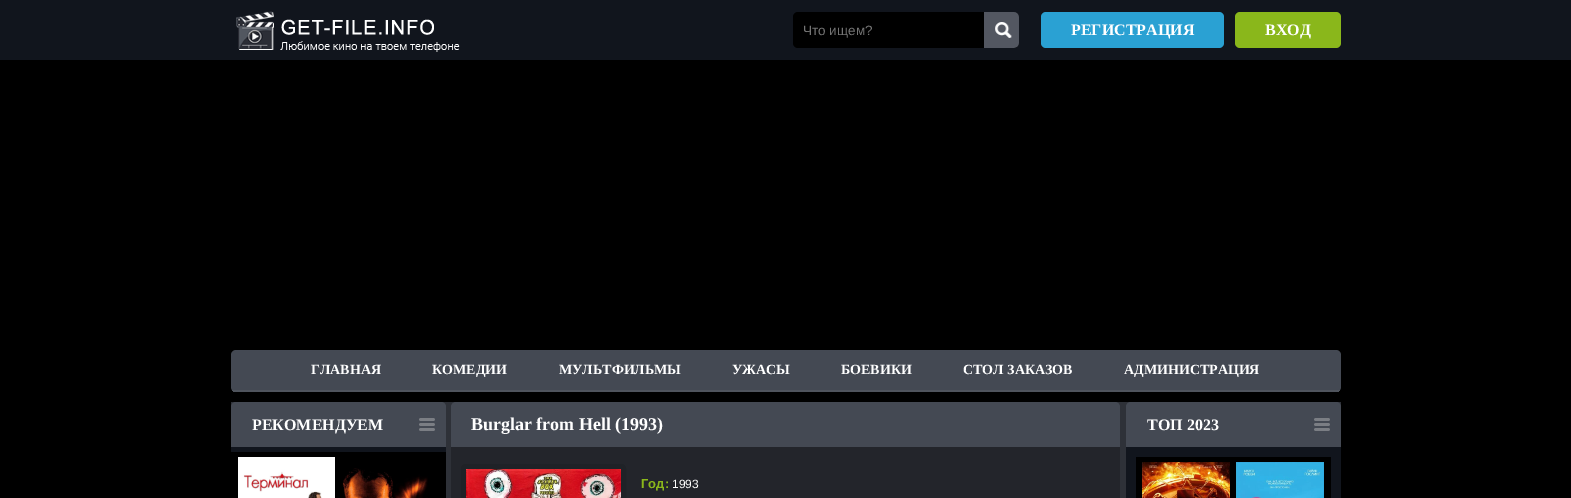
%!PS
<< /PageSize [1571 498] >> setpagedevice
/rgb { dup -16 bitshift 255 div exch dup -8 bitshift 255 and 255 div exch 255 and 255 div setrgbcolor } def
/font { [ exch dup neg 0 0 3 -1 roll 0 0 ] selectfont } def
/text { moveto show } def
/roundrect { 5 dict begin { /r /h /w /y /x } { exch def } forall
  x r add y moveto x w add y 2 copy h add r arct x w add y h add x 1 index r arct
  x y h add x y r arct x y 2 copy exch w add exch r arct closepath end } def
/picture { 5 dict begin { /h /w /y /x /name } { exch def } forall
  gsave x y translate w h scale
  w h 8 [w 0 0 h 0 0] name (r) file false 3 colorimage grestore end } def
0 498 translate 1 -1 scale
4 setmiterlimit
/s1 { /LiberationSans-Regular 13.5 font 16#757575 rgb } def
/s2 { /LiberationSerif-Bold 16 font 16#FFFFFF rgb } def
/s3 { /LiberationSerif-Bold 14 font 16#FFFFFF rgb } def
/s4 { /LiberationSerif-Bold 18 font 16#FFFFFF rgb } def
/s5 { /LiberationSans-Bold 13 font 16#8AB71B rgb } def
/s6 { /LiberationSans-Regular 12 font 16#FFFFFF rgb } def
16#000000 rgb
0 0 1571 498 rectfill
16#11151D rgb
0 0 1571 60 rectfill
(pic1.raw) 236 11 224 41 picture
16#000000 rgb
793 12 226 36 5 roundrect fill
s1
(Что ищем?) 803 35 text
(pic2.raw) 984 12 35 36 picture
16#2AA1D3 rgb
1041 12 183 36 5 roundrect fill
s2
(РЕГИСТРАЦИЯ) 1071 35 text
16#8AB71B rgb
1235 12 106 36 5 roundrect fill
s2
(ВХОД) 1265 35 text
16#444953 rgb
231 350 1110 42 5 roundrect fill
gsave
231 350 1110 42 5 roundrect clip newpath
16#4F545D rgb
231 390 1110 2 rectfill
grestore
s3
(ГЛАВНАЯ) 311 374 text
(КОМЕДИИ) 432 374 text
(МУЛЬТФИЛЬМЫ) 559 374 text
(УЖАСЫ) 732 374 text
(БОЕВИКИ) 841 374 text
(СТОЛ ЗАКАЗОВ) 963 374 text
(АДМИНИСТРАЦИЯ) 1124 374 text
16#2E3138 rgb
231 402 1110 96 rectfill
16#444953 rgb
236 402 moveto 441 402 lineto 444 402 446 404 446 407 curveto 446 447 lineto 231 447 lineto 231 407 lineto 231 404 233 402 236 402 curveto closepath fill
s2
(РЕКОМЕНДУЕМ) 252 430 text
(pic3.raw) 419 418 16 13 picture
16#11151D rgb
231 447 215 5 rectfill
16#000000 rgb
231 452 215 46 rectfill
(pic4.raw) 238 457 97 41 picture
(pic5.raw) 342 468 86 30 picture
16#23252B rgb
451 402 669 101 5 roundrect fill
16#444953 rgb
456 402 moveto 1115 402 lineto 1118 402 1120 404 1120 407 curveto 1120 447 lineto 451 447 lineto 451 407 lineto 451 404 453 402 456 402 curveto closepath fill
s4
(Burglar from Hell \(1993\)) 471 430 text
16#1F2227 rgb
5 setlinewidth
463.5 466.5 160 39 2.5 roundrect stroke
(pic6.raw) 466 469 155 29 picture
s5
(Год:) 641 488 text
s6
(1993) 672 488 text
16#444953 rgb
1131 402 moveto 1336 402 lineto 1339 402 1341 404 1341 407 curveto 1341 447 lineto 1126 447 lineto 1126 407 lineto 1126 404 1128 402 1131 402 curveto closepath fill
s2
(ТОП 2023) 1147 430 text
(pic3.raw) 1314 418 16 13 picture
16#11151D rgb
1126 447 215 51 rectfill
16#000000 rgb
1136 457 195 41 rectfill
(pic7.raw) 1142 462 88 36 picture
(pic8.raw) 1236 462 88 36 picture
showpage
